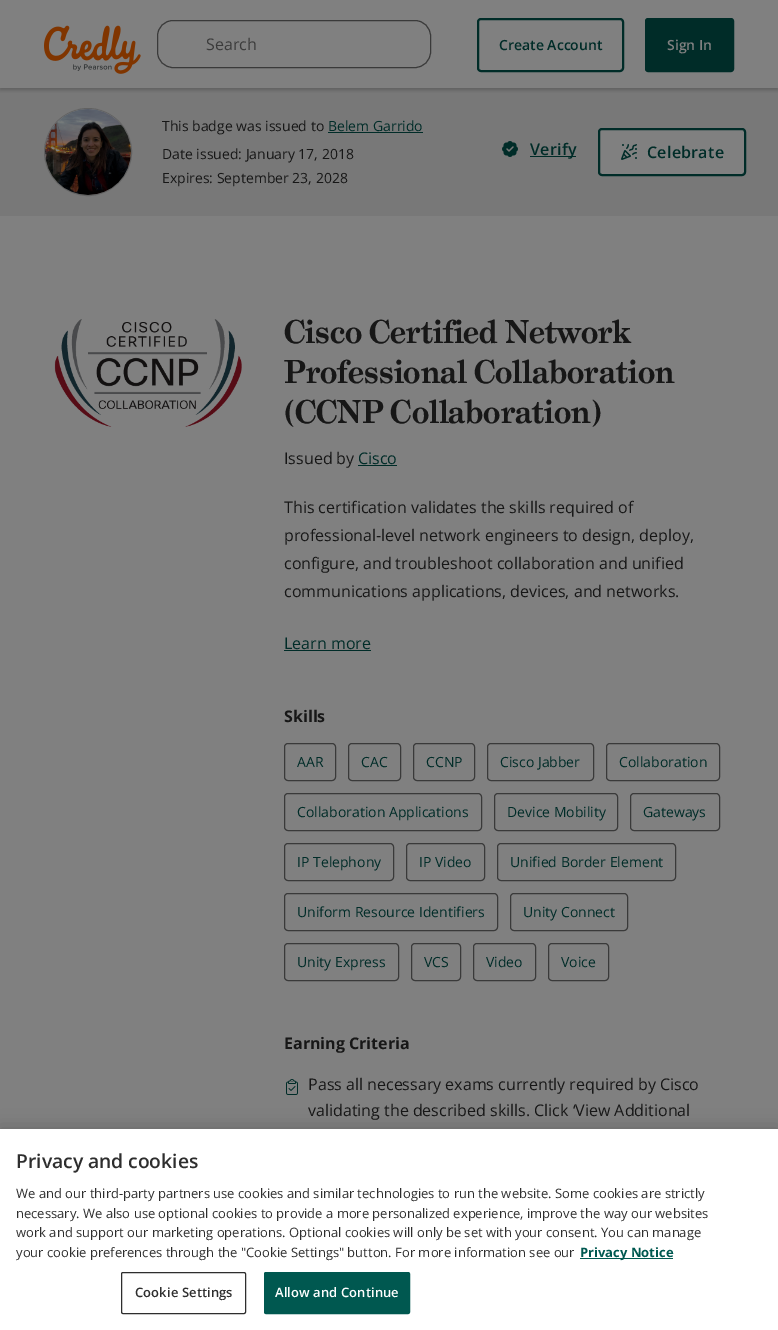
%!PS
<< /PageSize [778 1330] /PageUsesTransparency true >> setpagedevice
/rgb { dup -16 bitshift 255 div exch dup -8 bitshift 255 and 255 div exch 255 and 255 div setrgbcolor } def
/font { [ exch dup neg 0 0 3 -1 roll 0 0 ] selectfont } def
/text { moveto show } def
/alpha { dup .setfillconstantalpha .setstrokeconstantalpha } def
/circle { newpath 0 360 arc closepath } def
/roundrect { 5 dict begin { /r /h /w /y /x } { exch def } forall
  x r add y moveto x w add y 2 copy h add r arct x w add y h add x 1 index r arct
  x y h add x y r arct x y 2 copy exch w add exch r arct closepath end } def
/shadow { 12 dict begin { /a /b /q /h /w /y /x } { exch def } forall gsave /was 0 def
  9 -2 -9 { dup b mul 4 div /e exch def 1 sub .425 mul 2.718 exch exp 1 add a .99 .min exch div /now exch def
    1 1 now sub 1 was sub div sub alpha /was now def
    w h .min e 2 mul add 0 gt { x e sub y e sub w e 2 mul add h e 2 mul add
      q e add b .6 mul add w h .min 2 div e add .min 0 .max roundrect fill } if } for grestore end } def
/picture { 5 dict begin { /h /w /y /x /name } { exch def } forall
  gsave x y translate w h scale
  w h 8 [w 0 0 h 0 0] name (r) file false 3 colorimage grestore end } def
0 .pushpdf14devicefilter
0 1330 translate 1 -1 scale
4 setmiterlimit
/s1 { /OpenSans-Regular 16 font 16#3B3B3B rgb } def
/s2 { /OpenSans-SemiBold 14 font 16#002C28 rgb } def
/s3 { /OpenSans-SemiBold 14 font 16#808080 rgb } def
/s4 { /OpenSans-Regular 14 font 16#171717 rgb } def
/s5 { /OpenSans-Regular 14 font 16#002C28 rgb } def
/s6 { /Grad-Bold 32 font 16#171717 rgb } def
/s7 { /OpenSans-Regular 16 font 16#171717 rgb } def
/s8 { /OpenSans-Regular 16 font 16#002C28 rgb } def
/s9 { /OpenSans-Bold 16 font 16#171717 rgb } def
/s10 { /OpenSans-SemiBold 19.25 font 16#2E2E2E rgb } def
/s11 { /OpenSans-Regular 13 font 16#2E2E2E rgb } def
/s12 { /OpenSans-Bold 13 font 16#005850 rgb } def
16#808080 rgb
0 0 778 1330 rectfill
16#787878 rgb
0 88 778 128 rectfill
gsave
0 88 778 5 rectclip
16#000000 rgb
0 2 778 88 0 2 0.2 shadow
grestore
(pic1.raw) 44 25 97 49 picture
16#3A3A3A rgb
157.5 20.5 273 47 15.5 roundrect stroke
s1
(Search) 206 50 text
16#002C28 rgb
2 setlinewidth
478 19 145 52 3 roundrect stroke
s2
(Create Account) 499 50 text
646 19 87 52 2 roundrect gsave fill grestore
stroke
s3
(Sign In) 667 50 text
88 152 43.5 circle gsave fill grestore
16#616161 rgb
1 setlinewidth
stroke
(pic2.raw) 45 109 86 86 picture
s4
(This badge was issued to) 162 131 text
s5
(Belem Garrido) 328 131 text
328 132 95 1 rectfill
s4
(Date issued: January 17, 2018) 162 159 text
(Expires: September 23, 2028) 162 183 text
(pic3.raw) 502 141 16 16 picture
16#002C28 rgb
530 156 46 1 rectfill
/OpenSans-SemiBold 16 font
530 155 moveto 0.25 0 (Verify) ashow
16#808080 rgb
599 129 146 46 3 roundrect gsave fill grestore
16#002C28 rgb
2 setlinewidth
stroke
(pic4.raw) 621 144 16 16 picture
647 158 moveto 0.25 0 (Celebrate) ashow
(pic5.raw) 54 319 188 108 picture
s6
(Cisco Certified Network) 284 343 text
(Professional Collaboration) 284 383 text
(\(CCNP Collaboration\)) 284 423 text
s7
(Issued by) 284 464 text
s8
(Cisco) 358 464 text
358 465 39 1 rectfill
s7
(This certification validates the skills required of) 284 513 text
(professional-level network engineers to design, deploy,) 284 541 text
(configure, and troubleshoot collaboration and unified) 284 569 text
(communications applications, devices, and networks.) 284 597 text
s8
(Learn more) 284 649 text
284 650 87 1 rectfill
s9
(Skills) 284 722 text
16#3A3A3A rgb
1 setlinewidth
284.5 743.5 51 37 3.5 roundrect stroke
s5
(AAR) 297 767 text
16#3A3A3A rgb
348.5 743.5 52 37 3.5 roundrect stroke
s5
(CAC) 361 767 text
16#3A3A3A rgb
413.5 743.5 61 37 3.5 roundrect stroke
s5
(CCNP) 426 767 text
16#3A3A3A rgb
487.5 743.5 106 37 3.5 roundrect stroke
s5
(Cisco Jabber) 500 767 text
16#3A3A3A rgb
606.5 743.5 113 37 3.5 roundrect stroke
s5
(Collaboration) 619 767 text
16#3A3A3A rgb
284.5 793.5 197 37 3.5 roundrect stroke
s5
(Collaboration Applications) 297 817 text
16#3A3A3A rgb
494.5 793.5 123 37 3.5 roundrect stroke
s5
(Device Mobility) 507 817 text
16#3A3A3A rgb
630.5 793.5 89 37 3.5 roundrect stroke
s5
(Gateways) 643 817 text
16#3A3A3A rgb
284.5 843.5 109 37 3.5 roundrect stroke
s5
(IP Telephony) 297 867 text
16#3A3A3A rgb
406.5 843.5 78 37 3.5 roundrect stroke
s5
(IP Video) 419 867 text
16#3A3A3A rgb
497.5 843.5 178 37 3.5 roundrect stroke
s5
(Unified Border Element) 510 867 text
16#3A3A3A rgb
284.5 893.5 213 37 3.5 roundrect stroke
s5
(Uniform Resource Identifiers) 297 917 text
16#3A3A3A rgb
510.5 893.5 117 37 3.5 roundrect stroke
s5
(Unity Connect) 523 917 text
16#3A3A3A rgb
284.5 943.5 114 37 3.5 roundrect stroke
s5
(Unity Express) 297 967 text
16#3A3A3A rgb
411.5 943.5 49 37 3.5 roundrect stroke
s5
(VCS) 424 967 text
16#3A3A3A rgb
473.5 943.5 62 37 3.5 roundrect stroke
s5
(Video) 486 967 text
16#3A3A3A rgb
548.5 943.5 60 37 3.5 roundrect stroke
s5
(Voice) 561 967 text
s9
(Earning Criteria) 284 1049 text
(pic6.raw) 286 1079 12 16 picture
s7
(Pass all necessary exams currently required by Cisco) 308 1090 text
(validating the described skills. Click ‘View Additional) 308 1116 text
16#000000 rgb
0 1129 778 201 0 9 0.2 shadow
16#FFFFFF rgb
0 1129 778 201 rectfill
s10
(Privacy and cookies) 16 1168 text
s11
(We and our third-party partners use cookies and similar technologies to run the website. Some cookies are strictly) 16 1198 text
(necessary. We also use optional cookies to provide a more personalized experience, improve the way our websites) 16 1218 text
(work and support our marketing operations. Optional cookies will only be set with your consent. You can manage) 16 1237 text
(your cookie preferences through the "Cookie Settings" button. For more information see our) 16 1257 text
16#005850 rgb
580 1258 93 1 rectfill
s12
(Privacy Notice) 580 1257 text
16#2E2E2E rgb
121.5 1272.5 124 41 1.5 roundrect stroke
/OpenSans-SemiBold 13 font
135 1297 moveto 0.1 0 (Cookie Settings) ashow
16#005850 rgb
264.5 1272.5 145 41 1.5 roundrect gsave fill grestore
stroke
16#FEFEFE rgb
275 1297 moveto 0.1 0 (Allow and Continue) ashow
.poppdf14devicefilter showpage
